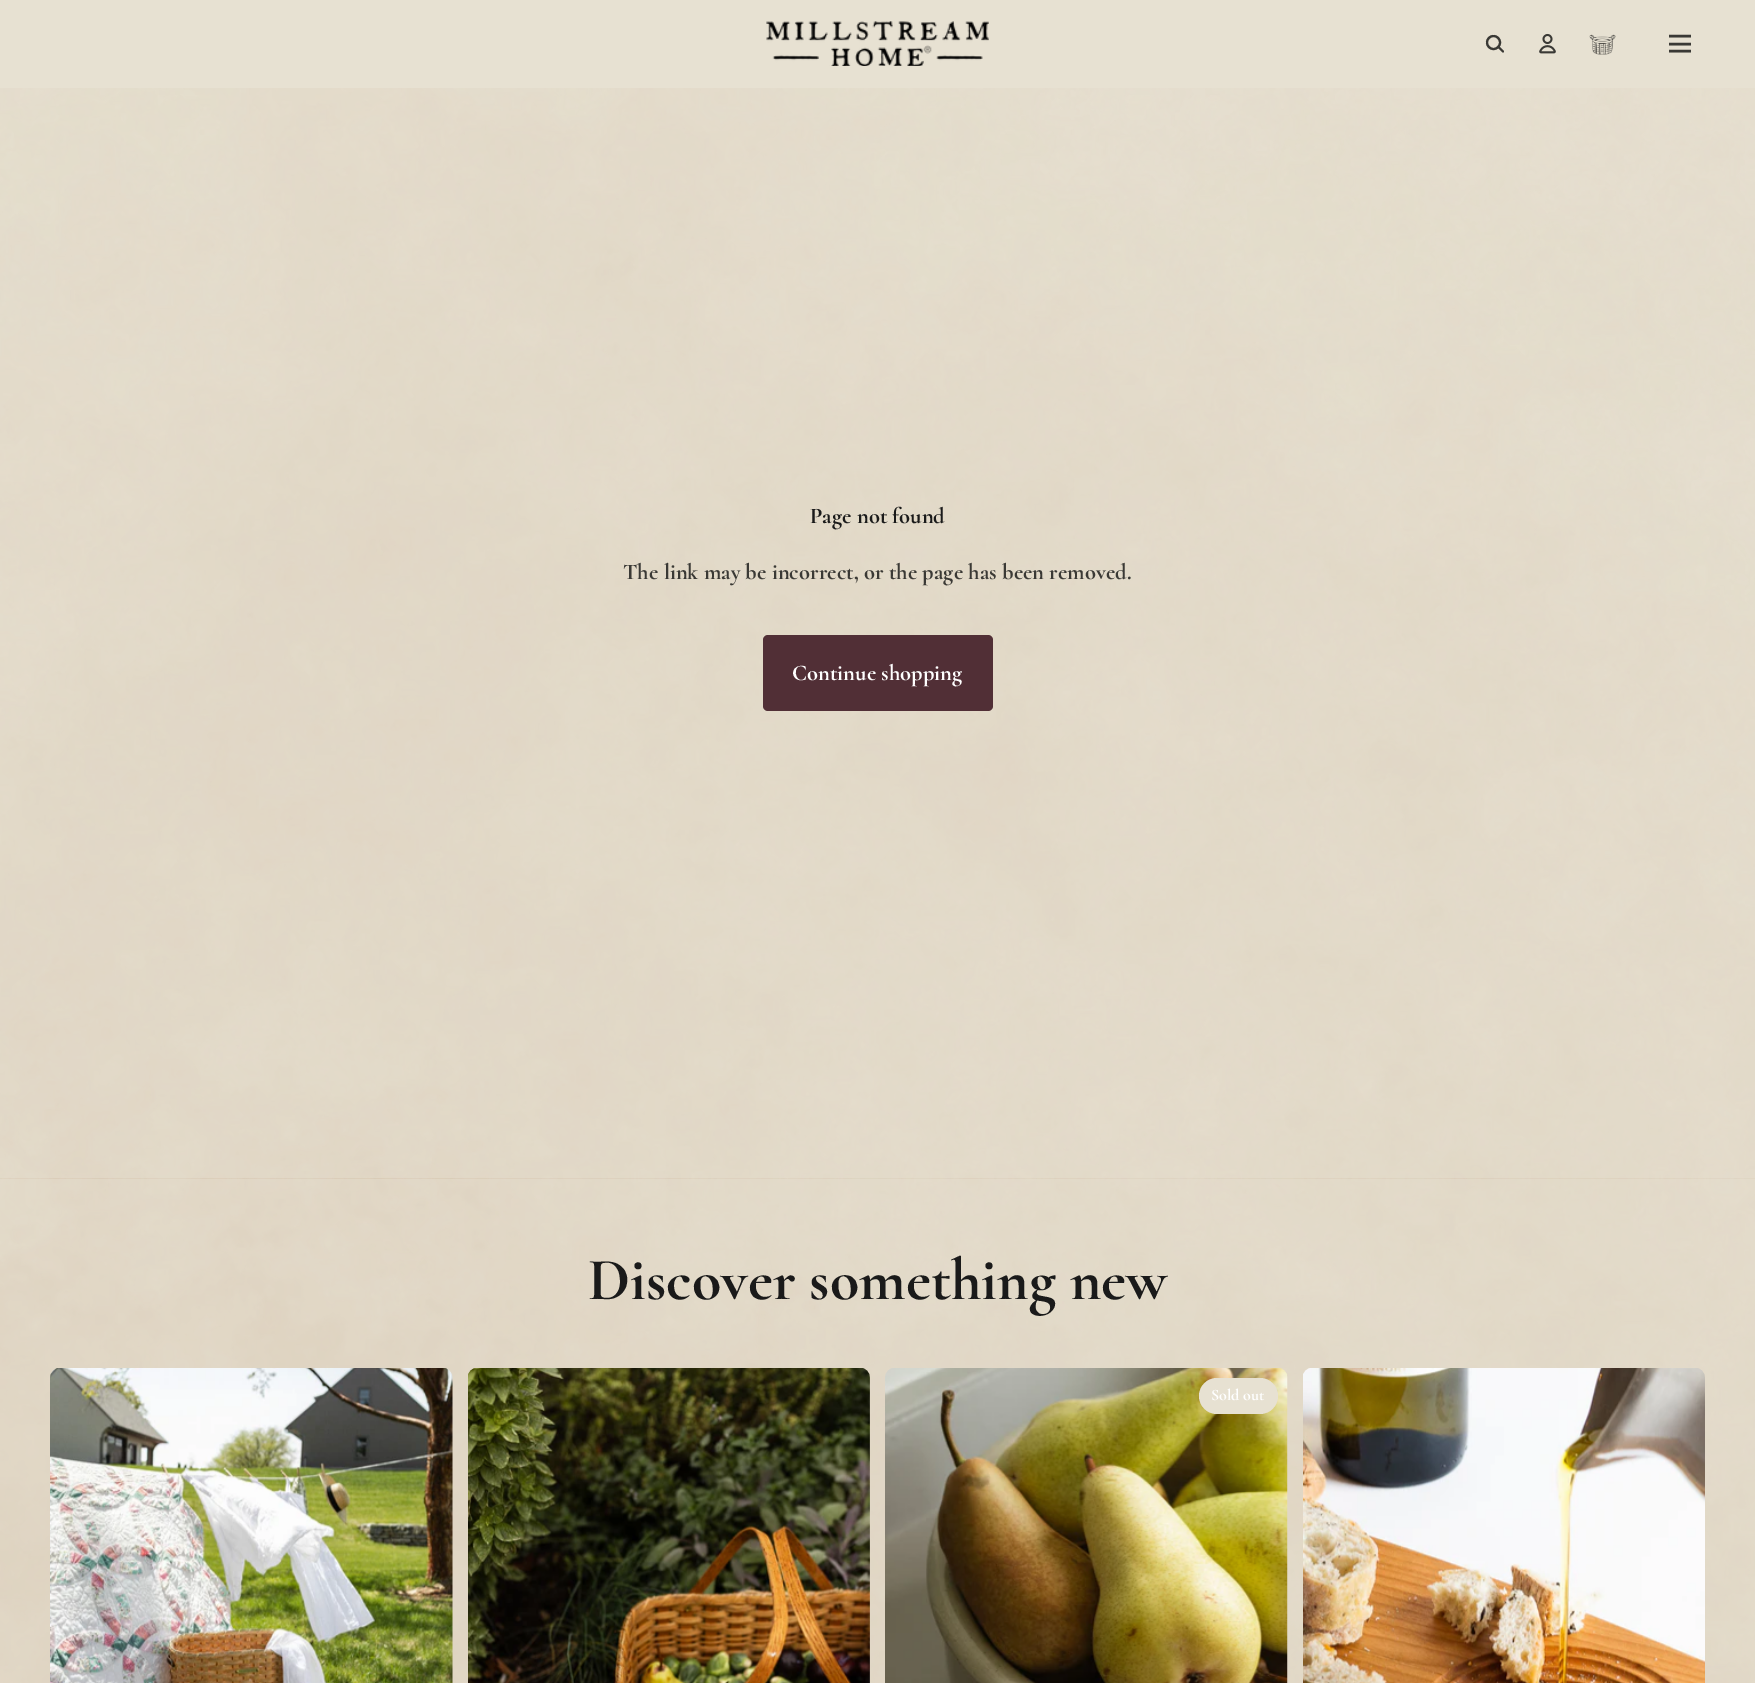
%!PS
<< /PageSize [1755 1683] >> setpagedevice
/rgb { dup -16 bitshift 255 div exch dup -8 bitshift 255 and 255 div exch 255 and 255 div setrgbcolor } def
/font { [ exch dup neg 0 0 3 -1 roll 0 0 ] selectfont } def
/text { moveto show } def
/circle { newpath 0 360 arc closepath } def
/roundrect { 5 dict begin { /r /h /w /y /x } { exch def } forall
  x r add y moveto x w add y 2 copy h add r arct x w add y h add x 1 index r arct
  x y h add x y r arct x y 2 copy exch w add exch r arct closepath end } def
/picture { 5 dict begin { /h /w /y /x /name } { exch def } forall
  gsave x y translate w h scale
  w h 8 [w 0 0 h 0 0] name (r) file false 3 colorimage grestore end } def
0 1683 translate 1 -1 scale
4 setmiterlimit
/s1 { /Cormorant-Bold 22.5 font 16#1A1A1A rgb } def
/s2 { /Cormorant-Bold 22.5 font 16#3A3935 rgb } def
/s3 { /Cormorant-Bold 22.5 font 16#FFFFFF rgb } def
/s4 { /Cormorant-Bold 60 font 16#1A1A1A rgb } def
/s5 { /Cormorant-Bold 16 font 16#FFFFFF rgb } def
16#E7E1D2 rgb
0 0 1755 1683 rectfill
(pic1.raw) 766 21 223 45 picture
16#3A3935 rgb
2.1 setlinewidth
1493.5 42.5 6.5 circle stroke
1 setlinecap
1 setlinejoin
1498.5 47 moveto 1503 51.5 lineto stroke
(pic2.raw) 1539 33 17 21 picture
(pic3.raw) 1589 34 27 21 picture
2.5 setlinewidth
0 setlinecap
0 setlinejoin
1669 36 moveto 1691 36 lineto 1669 44 moveto 1691 44 lineto 1669 51 moveto 1691 51 lineto stroke
(pic4.raw) 0 88 1755 1091 picture
s1
(Page not found) 810 523 text
s2
(The link may be incorrect, or the page has been removed.) 623 579 text
16#512F36 rgb
763 635 230 76 5 roundrect fill
s3
(Continue shopping) 792 680 text
(pic5.raw) 0 1178 1755 505 picture
s4
(Discover something new) 588 1299 text
(pic6.raw) 50 1368 403 315 picture
(pic7.raw) 468 1368 402 315 picture
(pic8.raw) 885 1368 403 315 picture
16#E7E1D2 rgb
1199 1378 79 36 18 roundrect fill
s5
(Sold out) 1211 1400 text
(pic9.raw) 1303 1368 402 315 picture
showpage
